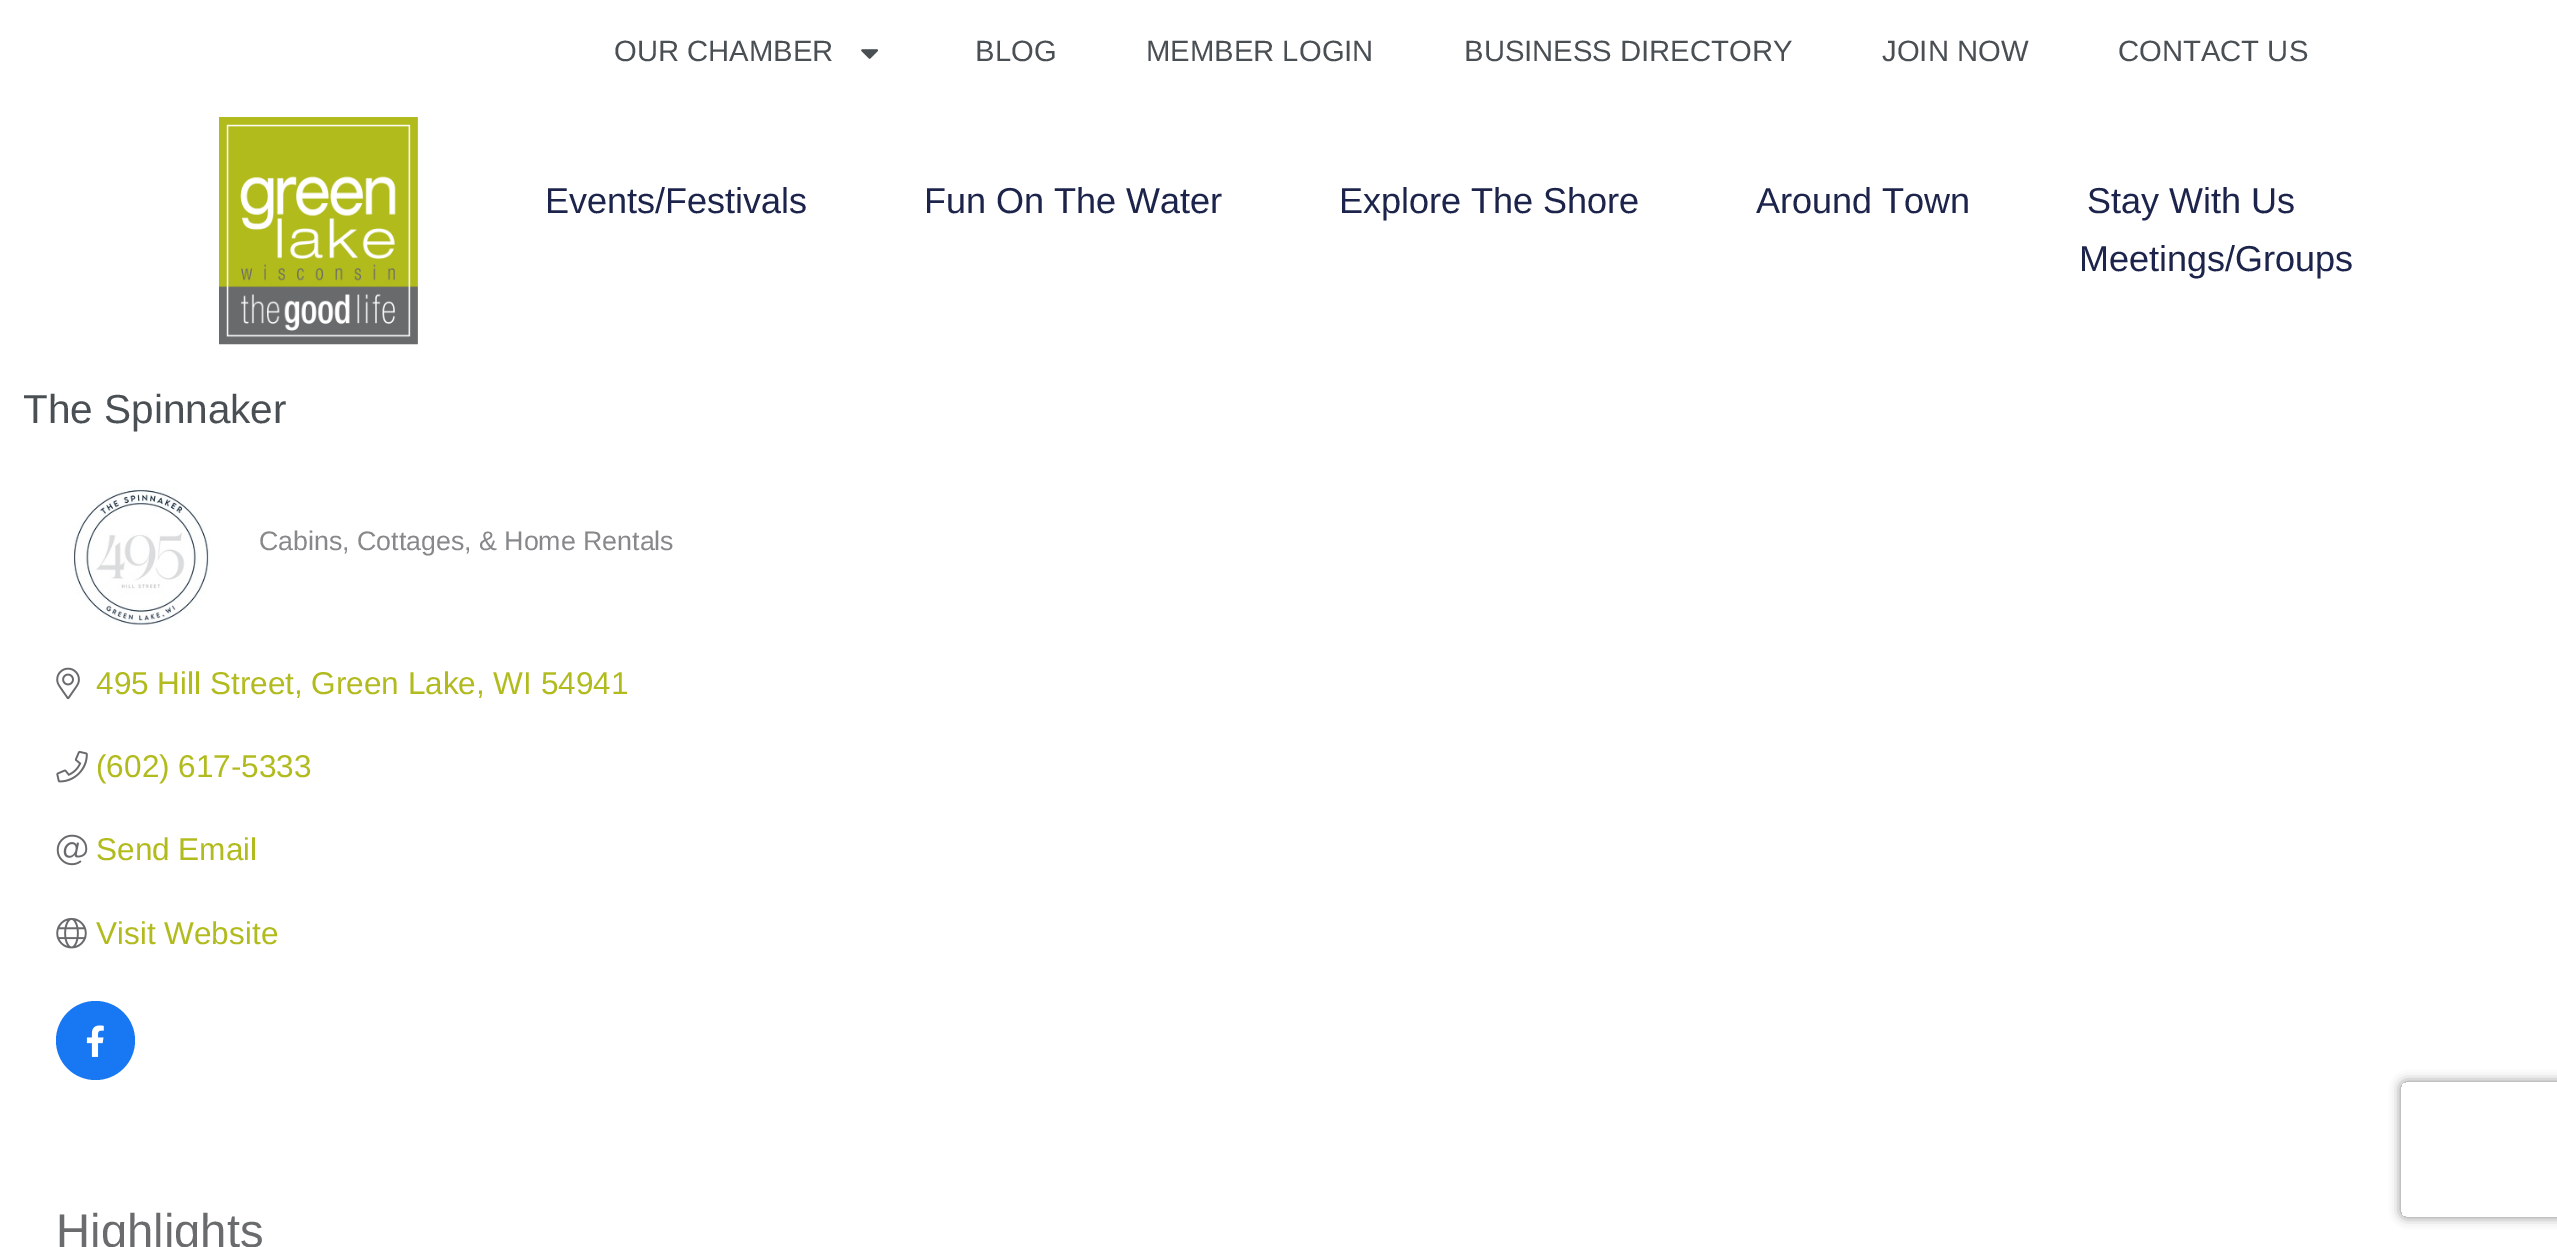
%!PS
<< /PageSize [2557 1247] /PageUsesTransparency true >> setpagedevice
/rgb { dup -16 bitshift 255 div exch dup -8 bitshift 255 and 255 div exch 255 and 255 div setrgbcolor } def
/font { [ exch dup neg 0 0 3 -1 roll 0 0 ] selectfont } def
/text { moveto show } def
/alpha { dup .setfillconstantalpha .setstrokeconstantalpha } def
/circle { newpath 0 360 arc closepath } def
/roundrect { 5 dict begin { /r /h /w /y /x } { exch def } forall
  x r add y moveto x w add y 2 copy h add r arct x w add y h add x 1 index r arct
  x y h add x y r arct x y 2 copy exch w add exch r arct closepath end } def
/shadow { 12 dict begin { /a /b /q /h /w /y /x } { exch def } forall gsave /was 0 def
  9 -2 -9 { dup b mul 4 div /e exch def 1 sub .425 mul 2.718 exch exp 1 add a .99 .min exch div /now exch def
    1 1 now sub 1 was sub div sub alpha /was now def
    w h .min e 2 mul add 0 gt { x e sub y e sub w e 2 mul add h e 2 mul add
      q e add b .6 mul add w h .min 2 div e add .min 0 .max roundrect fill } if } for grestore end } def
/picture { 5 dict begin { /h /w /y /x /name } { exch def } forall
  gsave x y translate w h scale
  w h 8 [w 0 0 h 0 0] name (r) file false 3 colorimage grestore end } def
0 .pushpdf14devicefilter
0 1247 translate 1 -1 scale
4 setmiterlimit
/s1 { /LiberationSans-Regular 29.25 font 16#4A4F54 rgb } def
/s2 { /LiberationSans-Regular 36 font 16#1C244B rgb } def
/s3 { /LiberationSans-Regular 40.5 font 16#4A4F54 rgb } def
/s4 { /LiberationSans-Regular 26.75 font 16#87888A rgb } def
/s5 { /LiberationSans-Regular 31.5 font 16#B2BB1E rgb } def
/s6 { /LiberationSans-Regular 47.25 font 16#696B6D rgb } def
16#FFFFFF rgb
0 0 2557 1247 rectfill
s1
(OUR CHAMBER) 614 61 text
(pic1.raw) 861 49 18 10 picture
(BLOG) 975 61 text
(MEMBER LOGIN) 1146 61 text
(BUSINESS DIRECTORY) 1464 61 text
(JOIN NOW) 1882 61 text
(CONTACT US) 2118 61 text
(pic2.raw) 219 117 199 228 picture
s2
(Events/Festivals) 545 213 text
(Fun On The Water) 924 213 text
(Explore The Shore) 1339 213 text
(Around Town) 1756 213 text
(Stay With Us) 2087 213 text
(Meetings/Groups) 2079 271 text
s3
(The Spinnaker) 23 423 text
(pic3.raw) 71 486 139 141 picture
s4
(Cabins, Cottages, & Home Rentals) 259 550 text
(pic4.raw) 56 667 24 33 picture
s5
(495 Hill Street, Green Lake, WI 54941) 96 694 text
(pic5.raw) 56 750 32 33 picture
(\(602\) 617-5333) 96 777 text
(pic6.raw) 56 834 32 32 picture
(Send Email) 96 860 text
(pic7.raw) 56 917 31 32 picture
(Visit Website) 96 944 text
16#1877F2 rgb
95.5 1040.5 39.5 circle fill
(pic8.raw) 86 1025 18 32 picture
s6
(Highlights) 56 1247 text
gsave
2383 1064 moveto 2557 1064 lineto 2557 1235 lineto 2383 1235 lineto closepath 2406 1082 moveto 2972 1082 lineto 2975 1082 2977 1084 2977 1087 curveto 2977 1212 lineto 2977 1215 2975 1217 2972 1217 curveto 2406 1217 lineto 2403 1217 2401 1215 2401 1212 curveto 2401 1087 lineto 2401 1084 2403 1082 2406 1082 curveto closepath eoclip newpath
16#808080 rgb
2401 1082 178 135 5 5.5 1 shadow
grestore
.poppdf14devicefilter showpage
